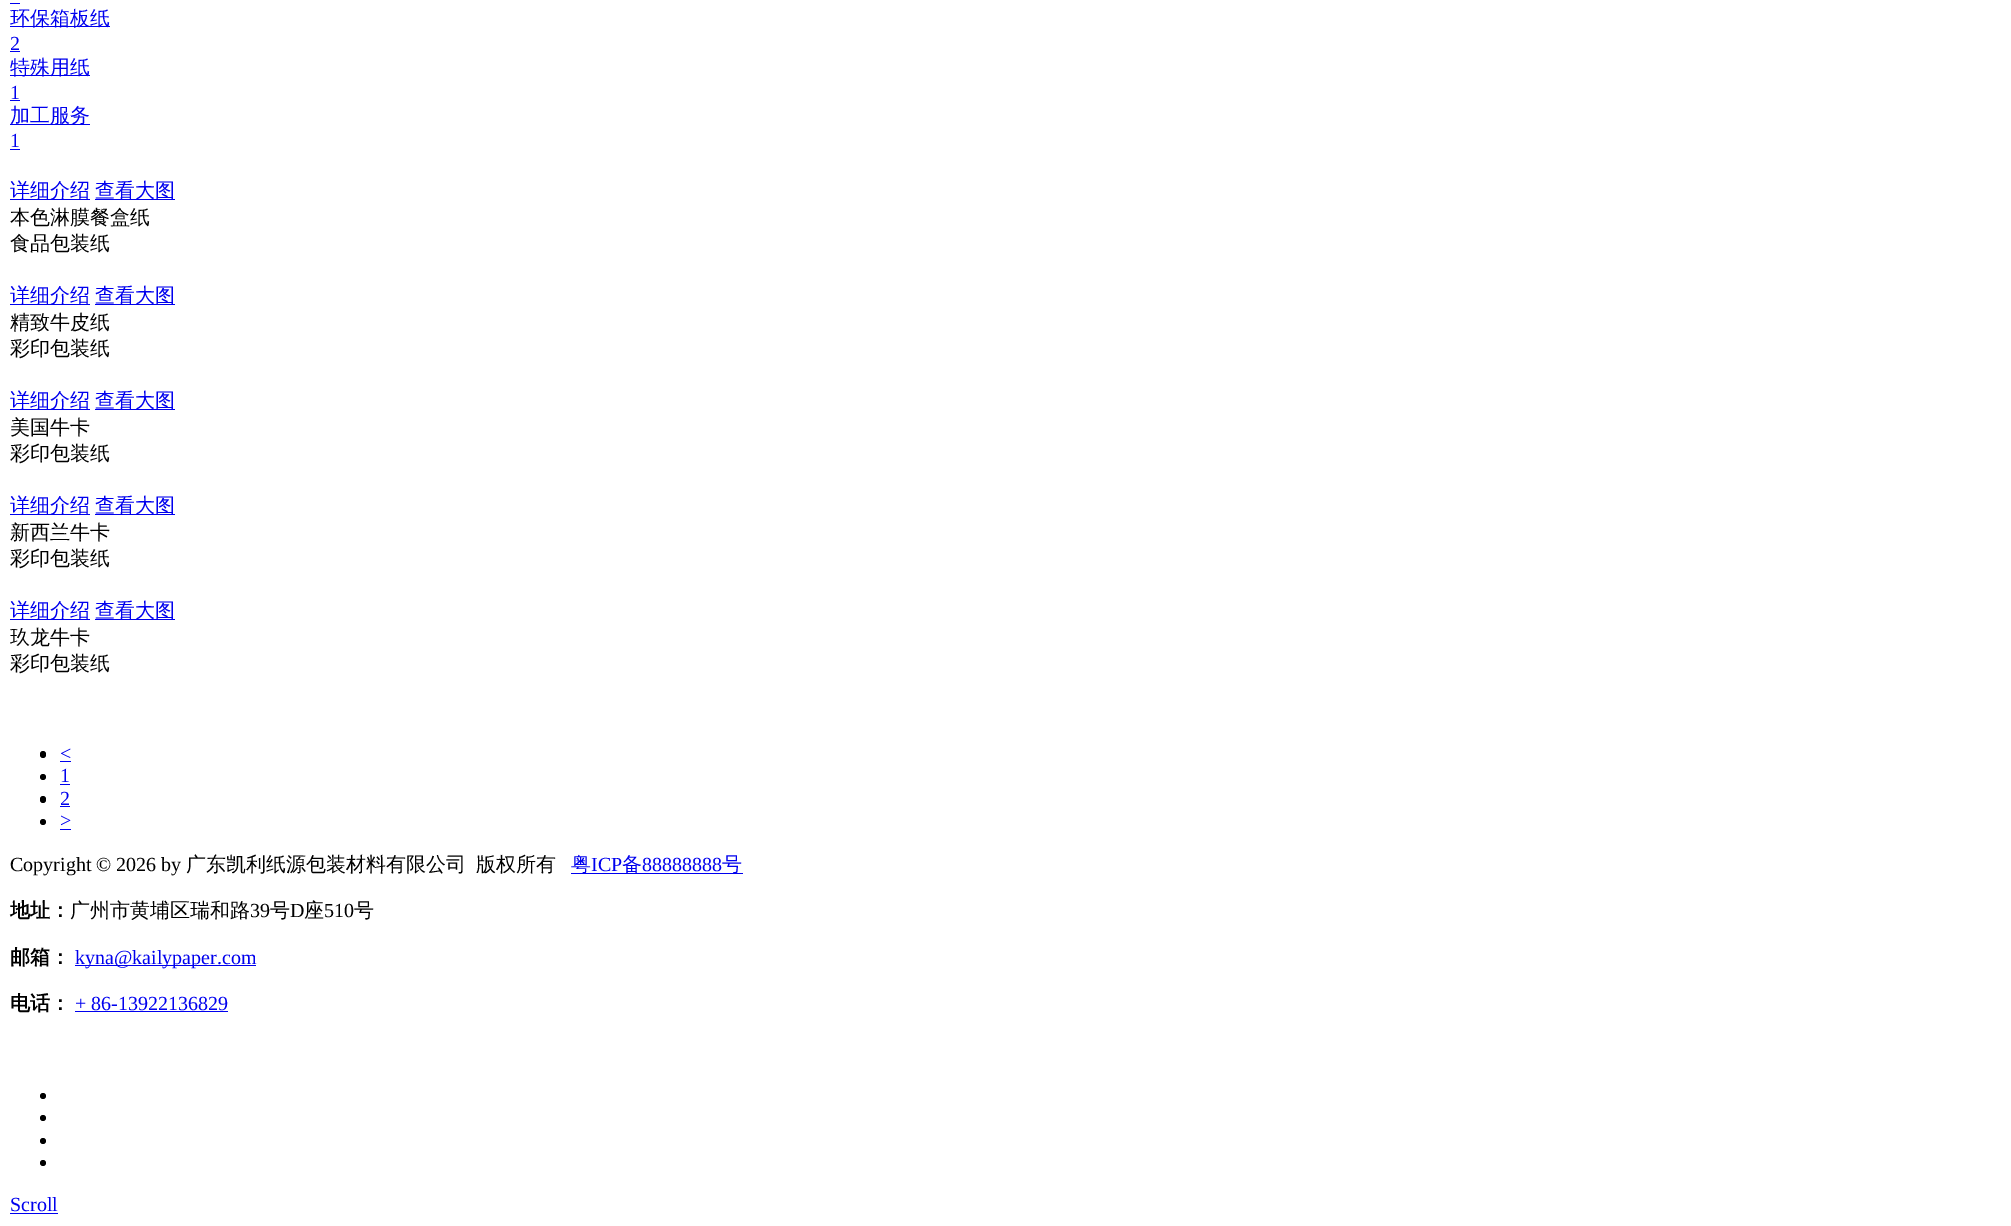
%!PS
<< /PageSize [2011 1226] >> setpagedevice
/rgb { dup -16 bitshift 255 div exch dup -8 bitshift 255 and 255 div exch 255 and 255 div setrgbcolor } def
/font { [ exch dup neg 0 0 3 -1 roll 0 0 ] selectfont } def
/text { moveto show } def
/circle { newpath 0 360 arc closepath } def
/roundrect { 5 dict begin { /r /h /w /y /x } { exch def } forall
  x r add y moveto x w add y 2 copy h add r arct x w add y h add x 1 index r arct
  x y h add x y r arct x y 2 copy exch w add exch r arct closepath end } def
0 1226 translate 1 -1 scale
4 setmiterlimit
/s1 { /WenQuanYiZenHei-Medium 20 font 16#0000EE rgb } def
/s2 { /LiberationSerif-Regular 20 font 16#0000EE rgb } def
/s3 { /WenQuanYiZenHei-Medium 20 font 16#000000 rgb } def
/s4 { /LiberationSerif-Regular 20 font 16#000000 rgb } def
/s5 { /WenQuanYiZenHei-Bold 20 font 16#000000 rgb } def
16#FFFFFF rgb
0 0 2011 1226 rectfill
16#0000EE rgb
10 3 10 1 rectfill
10 26 100 1 rectfill
s1
(环保箱板纸) 10 25 text
s2
(2) 10 50 text
10 51 10 1 rectfill
10 75 80 1 rectfill
s1
(特殊用纸) 10 74 text
s2
(1) 10 99 text
10 100 10 1 rectfill
10 124 80 1 rectfill
s1
(加工服务) 10 122 text
s2
(1) 10 147 text
10 149 10 1 rectfill
10 199 80 1 rectfill
s1
(详细介绍) 10 197 text
95 199 80 1 rectfill
(查看大图) 95 197 text
s3
(本色淋膜餐盒纸) 10 224 text
(食品包装纸) 10 250 text
16#0000EE rgb
10 304 80 1 rectfill
(详细介绍) 10 302 text
95 304 80 1 rectfill
(查看大图) 95 302 text
s3
(精致牛皮纸) 10 329 text
(彩印包装纸) 10 355 text
16#0000EE rgb
10 409 80 1 rectfill
(详细介绍) 10 407 text
95 409 80 1 rectfill
(查看大图) 95 407 text
s3
(美国牛卡) 10 434 text
(彩印包装纸) 10 460 text
16#0000EE rgb
10 514 80 1 rectfill
(详细介绍) 10 512 text
95 514 80 1 rectfill
(查看大图) 95 512 text
s3
(新西兰牛卡) 10 539 text
(彩印包装纸) 10 565 text
16#0000EE rgb
10 619 80 1 rectfill
(详细介绍) 10 617 text
95 619 80 1 rectfill
(查看大图) 95 617 text
s3
(玖龙牛卡) 10 644 text
(彩印包装纸) 10 670 text
40 751 6 7 3 roundrect fill
s2
(<) 60 760 text
60 761 11 1 rectfill
16#000000 rgb
43 777 3 circle fill
s2
(1) 60 782 text
60 784 10 1 rectfill
16#000000 rgb
40 796 6 7 3 roundrect fill
s2
(2) 60 805 text
60 806 10 1 rectfill
16#000000 rgb
43 822 3 circle fill
s2
(>) 60 827 text
60 829 11 1 rectfill
s4
(Copyright © 2026 by) 10 871 text
s3
(广东凯利纸源包装材料有限公司) 186 871 text
(版权所有) 476 871 text
16#0000EE rgb
571 873 172 1 rectfill
(粤) 571 871 text
s2
(ICP) 591 871 text
s1
(备) 622 871 text
s2
(88888888) 642 871 text
s1
(号) 722 871 text
s5
(地址：) 10 917 text
s3
(广州市黄埔区瑞和路) 70 917 text
s4
(39) 250 917 text
s3
(号) 270 917 text
s4
(D) 290 917 text
s3
(座) 304 917 text
s4
(510) 324 917 text
s3
(号) 354 917 text
s5
(邮箱：) 10 964 text
16#0000EE rgb
75 965 181 1 rectfill
s2
(kyna@kailypaper.com) 75 964 text
s5
(电话：) 10 1010 text
s2
(+ 86-13922136829) 75 1010 text
75 1011 153 1 rectfill
16#000000 rgb
43 1096 3 circle fill
43 1118 3 circle fill
43 1141 3 circle fill
43 1163 3 circle fill
s2
(Scroll) 10 1211 text
10 1213 48 1 rectfill
showpage
